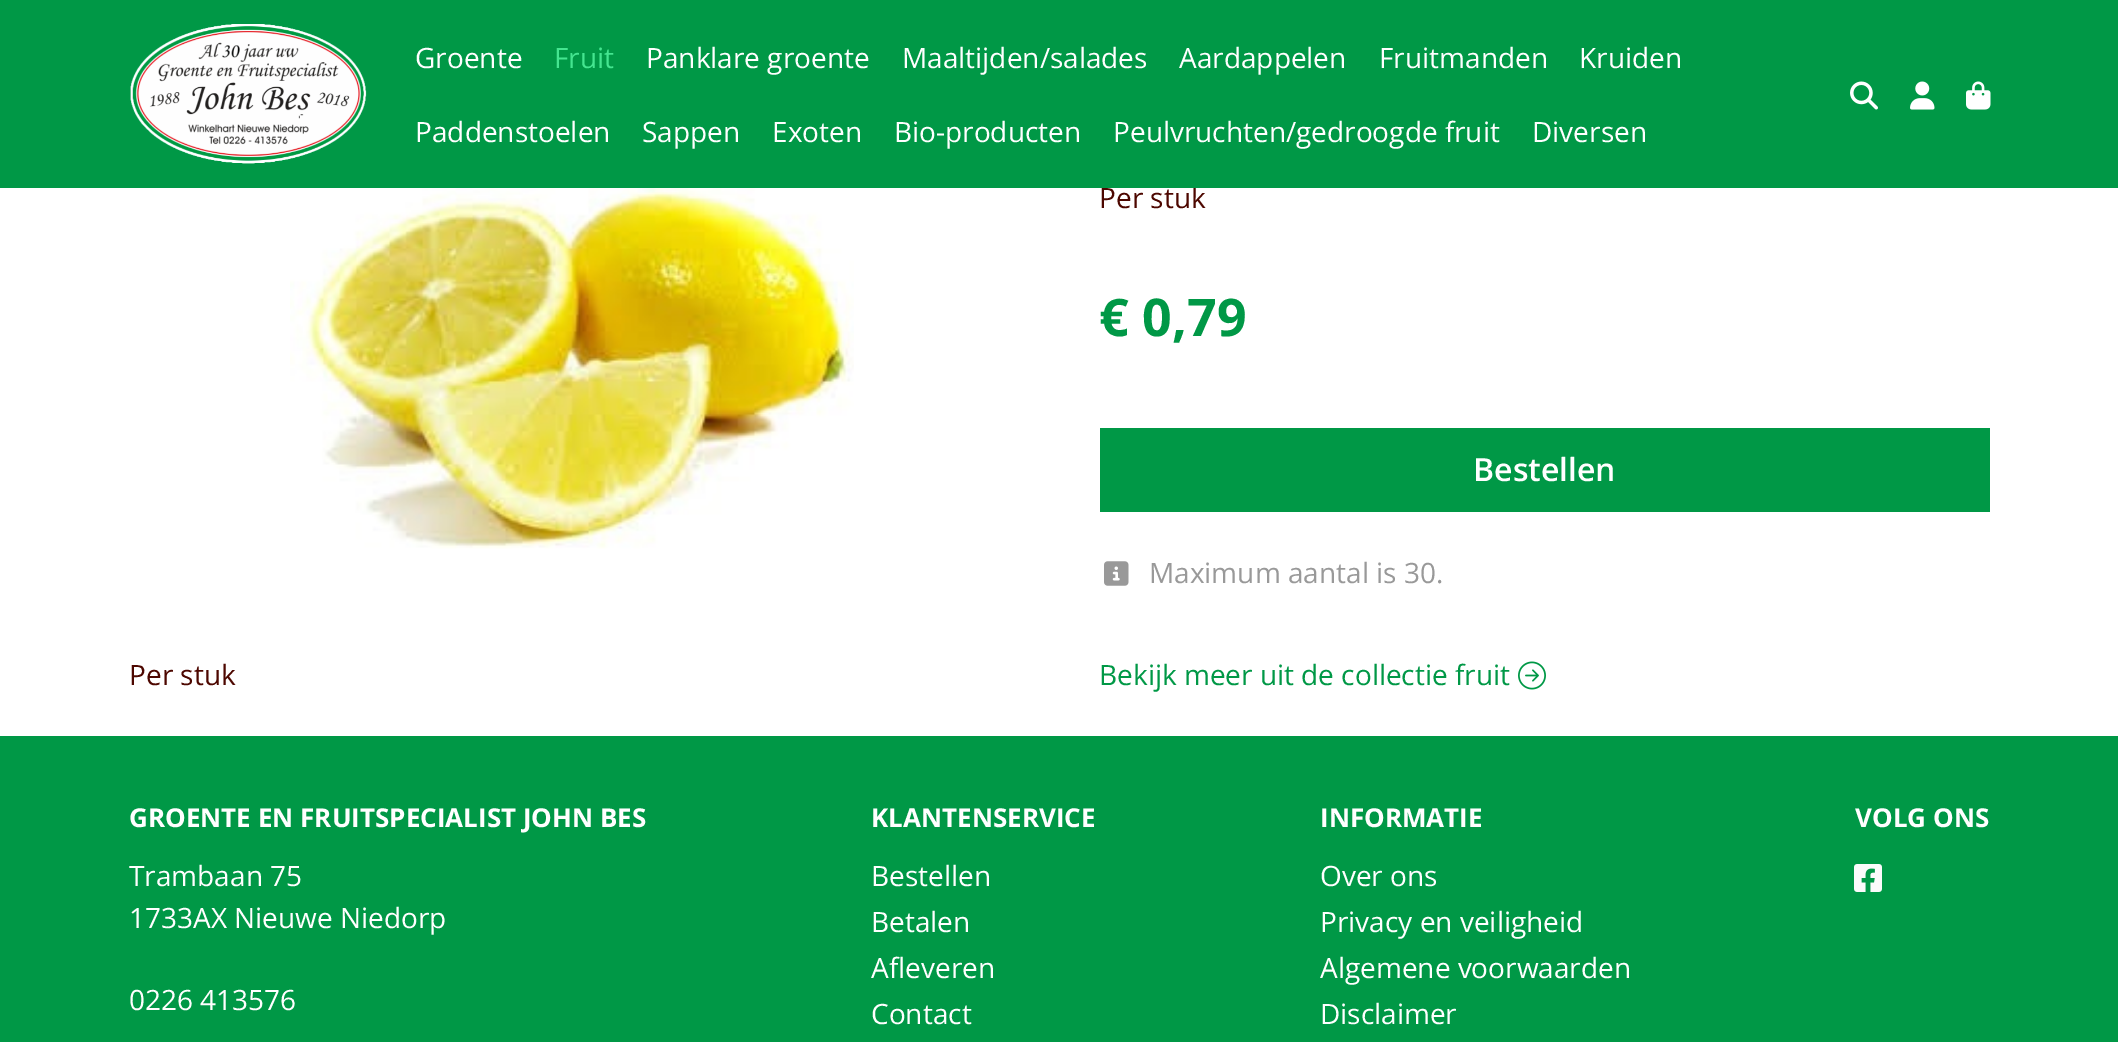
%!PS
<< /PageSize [2118 1042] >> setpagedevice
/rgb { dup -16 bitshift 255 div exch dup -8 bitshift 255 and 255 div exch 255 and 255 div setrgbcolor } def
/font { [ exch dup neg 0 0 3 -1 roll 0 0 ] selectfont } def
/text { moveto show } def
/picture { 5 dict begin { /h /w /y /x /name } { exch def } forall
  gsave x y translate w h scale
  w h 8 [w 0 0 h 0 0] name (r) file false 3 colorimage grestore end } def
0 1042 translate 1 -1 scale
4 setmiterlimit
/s1 { /OpenSans-Regular 28 font 16#4D0700 rgb } def
/s2 { /OpenSans-Regular 28 font 16#FFFFFF rgb } def
/s3 { /OpenSans-Regular 28 font 16#45E590 rgb } def
/s4 { /OpenSans-Bold 52 font 16#009846 rgb } def
/s5 { /OpenSans-SemiBold 32 font 16#FFFFFF rgb } def
/s6 { /OpenSans-Regular 28 font 16#999999 rgb } def
/s7 { /OpenSans-Regular 28 font 16#009846 rgb } def
/s8 { /OpenSans-Bold 26 font 16#FFFFFF rgb } def
16#FFFFFF rgb
0 0 2118 1042 rectfill
s1
(Per stuk) 1099 208 text
16#009846 rgb
0 0 2118 188 rectfill
(pic1.raw) 130 24 237 140 picture
s2
(Groente) 415 68 text
s3
(Fruit) 554 68 text
s2
(Panklare groente) 646 68 text
(Maaltijden/salades) 902 68 text
(Aardappelen) 1179 68 text
(Fruitmanden) 1379 68 text
(Kruiden) 1579 68 text
(Paddenstoelen) 415 142 text
(Sappen) 642 142 text
(Exoten) 772 142 text
(Bio-producten) 894 142 text
(Peulvruchten/gedroogde fruit) 1113 142 text
(Diversen) 1532 142 text
(pic2.raw) 1850 81 28 29 picture
(pic3.raw) 1910 81 25 29 picture
(pic4.raw) 1966 81 25 29 picture
(pic5.raw) 290 188 564 361 picture
s1
(Per stuk) 129 685 text
s4
(€ 0,79) 1099 336 text
1100 428 890 84 rectfill
s5
(Bestellen) 1473 481 text
(pic6.raw) 1104 561 25 25 picture
s6
(Maximum aantal is 30.) 1149 583 text
s7
(Bekijk meer uit de collectie fruit) 1099 685 text
(pic7.raw) 1518 661 28 29 picture
0 736 2118 306 rectfill
s8
(GROENTE EN FRUITSPECIALIST JOHN BES) 129 827 text
s2
(Trambaan 75) 129 886 text
(1733AX Nieuwe Niedorp) 129 928 text
(0226 413576) 129 1010 text
s8
(KLANTENSERVICE) 871 827 text
s2
(Bestellen) 871 886 text
(Betalen) 871 932 text
(Afleveren) 871 978 text
(Contact) 871 1024 text
s8
(INFORMATIE) 1320 827 text
s2
(Over ons) 1320 886 text
(Privacy en veiligheid) 1320 932 text
(Algemene voorwaarden) 1320 978 text
(Disclaimer) 1320 1024 text
s8
(VOLG ONS) 1855 827 text
(pic8.raw) 1854 864 28 28 picture
showpage
